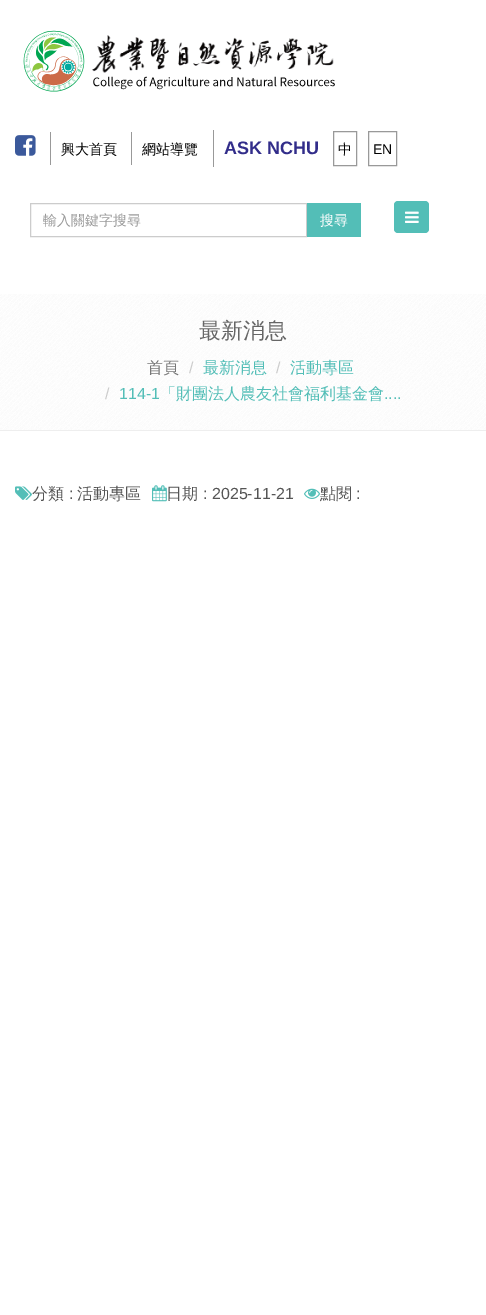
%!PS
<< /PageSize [486 1315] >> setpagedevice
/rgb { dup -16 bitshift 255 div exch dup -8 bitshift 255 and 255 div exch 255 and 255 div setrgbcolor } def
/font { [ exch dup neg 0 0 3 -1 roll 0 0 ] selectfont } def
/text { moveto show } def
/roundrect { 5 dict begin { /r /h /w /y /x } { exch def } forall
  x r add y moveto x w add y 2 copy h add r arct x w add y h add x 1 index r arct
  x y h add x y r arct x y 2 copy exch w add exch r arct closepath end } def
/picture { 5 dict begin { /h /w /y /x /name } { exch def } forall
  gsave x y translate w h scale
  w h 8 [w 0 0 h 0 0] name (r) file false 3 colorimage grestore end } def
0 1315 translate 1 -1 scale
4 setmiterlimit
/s1 { /WenQuanYiZenHei-Medium 14 font 16#000000 rgb } def
/s2 { /LiberationSans-Bold 18 font 16#322D8A rgb } def
/s3 { /LiberationSans-Regular 14 font 16#000000 rgb } def
/s4 { /WenQuanYiZenHei-Medium 14 font 16#999999 rgb } def
/s5 { /WenQuanYiZenHei-Medium 14 font 16#FFFFFF rgb } def
/s6 { /WenQuanYiZenHei-Medium 22 font 16#666666 rgb } def
/s7 { /WenQuanYiZenHei-Medium 16 font 16#777777 rgb } def
/s8 { /LiberationSans-Regular 16 font 16#CCCCCC rgb } def
/s9 { /WenQuanYiZenHei-Medium 16 font 16#53BEB7 rgb } def
/s10 { /LiberationSans-Regular 16 font 16#53BEB7 rgb } def
/s11 { /WenQuanYiZenHei-Medium 16 font 16#555555 rgb } def
/s12 { /LiberationSans-Regular 16 font 16#555555 rgb } def
16#FFFFFF rgb
0 0 486 1315 rectfill
(pic1.raw) 23 30 312 62 picture
(pic2.raw) 15 135 21 21 picture
16#999999 rgb
50 132 1 33 rectfill
s1
(興大首頁) 61 154 text
16#999999 rgb
131 132 1 33 rectfill
s1
(網站導覽) 142 154 text
16#999999 rgb
213 130 1 37 rectfill
s2
(ASK NCHU) 224 154 text
16#999999 rgb
333.5 131.5 23 34 rectstroke
s1
(中) 338 154 text
16#999999 rgb
368.5 131.5 28 34 rectstroke
s3
(EN) 373 154 text
16#CCCCCC rgb
30.5 203.5 276 33 rectstroke
s4
(輸入關鍵字搜尋) 43 225 text
16#53BEB7 rgb
307 203 54 34 rectfill
s5
(搜尋) 320 225 text
16#53BEB7 rgb
394 201 35 32 4 roundrect fill
(pic3.raw) 405 211 14 12 picture
(pic4.raw) 0 294 486 136 picture
16#EEEEEE rgb
0 430 486 1 rectfill
s6
(最新消息) 199 338 text
s7
(首頁) 147 373 text
s8
(/) 189 373 text
s9
(最新消息) 203 373 text
s8
(/) 276 373 text
s9
(活動專區) 290 373 text
s8
(/) 105 399 text
s10
(114-1) 119 399 text
s9
(「財團法人農友社會福利基金會) 160 399 text
s10
(....) 384 399 text
(pic5.raw) 15 486 17 14 picture
s11
(分類) 32 499 text
s12
(:) 69 499 text
s11
(活動專區) 77 499 text
(pic6.raw) 152 485 15 17 picture
(日期) 166 499 text
s12
(: 2025-11-21) 203 499 text
(pic7.raw) 304 488 16 11 picture
s11
(點閱) 320 499 text
s12
(:) 356 499 text
showpage
